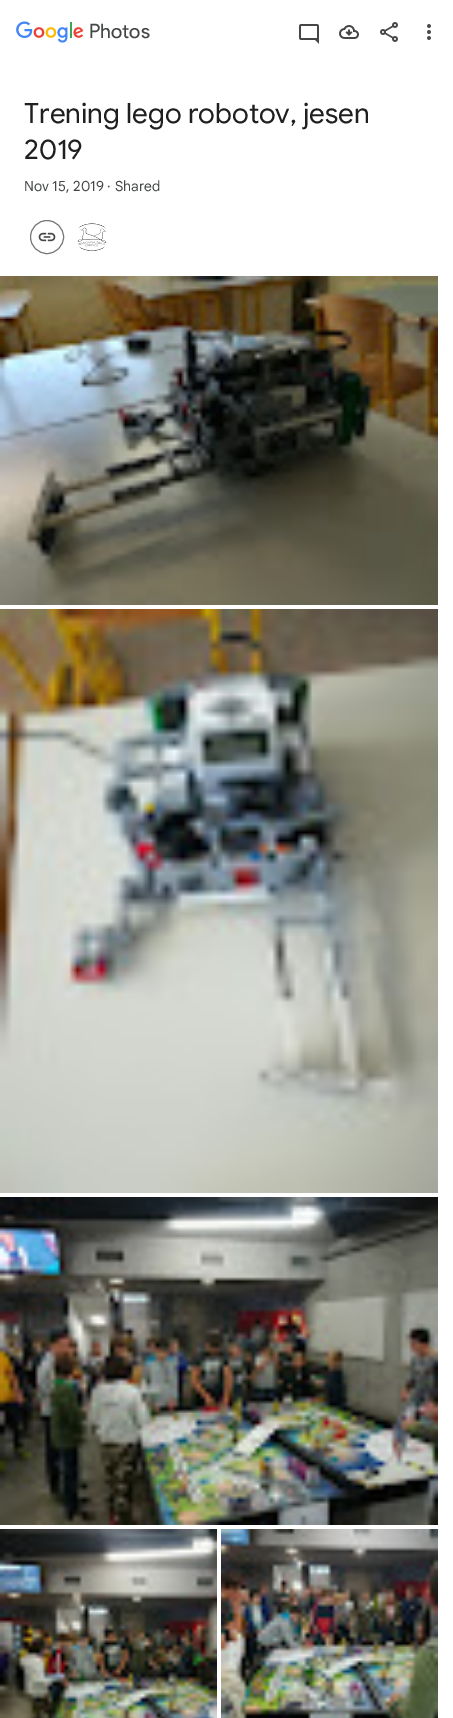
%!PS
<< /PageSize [453 1718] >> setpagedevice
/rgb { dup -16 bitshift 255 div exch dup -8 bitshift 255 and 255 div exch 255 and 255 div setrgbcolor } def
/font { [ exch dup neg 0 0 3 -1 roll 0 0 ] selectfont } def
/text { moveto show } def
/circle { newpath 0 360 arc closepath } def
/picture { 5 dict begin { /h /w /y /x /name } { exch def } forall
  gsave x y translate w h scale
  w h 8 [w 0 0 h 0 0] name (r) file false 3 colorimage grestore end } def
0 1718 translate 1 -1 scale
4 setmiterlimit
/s1 { /ProductSans-Regular 20 font 16#444746 rgb } def
/s2 { /GoogleSans-Regular 28 font 16#1F1F1F rgb } def
/s3 { /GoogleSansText-Regular 14 font 16#444746 rgb } def
16#FFFFFF rgb
0 0 453 1718 rectfill
(pic1.raw) 16 21 68 22 picture
s1
(Photos) 89 38 text
(pic2.raw) 299 24 20 20 picture
(pic3.raw) 339 25 20 14 picture
(pic4.raw) 380 22 18 20 picture
(pic5.raw) 427 24 4 16 picture
s2
(Trening lego robotov, jesen) 24 123 text
(2019) 24 159 text
s3
(Nov 15, 2019 · Shared) 24 191 text
16#747775 rgb
47 237 16.5 circle stroke
(pic6.raw) 38 232 18 10 picture
(pic7.raw) 77 223 30 28 picture
(pic8.raw) 0 276 438 329 picture
(pic9.raw) 0 609 438 584 picture
(pic10.raw) 0 1197 438 328 picture
(pic11.raw) 0 1529 217 189 picture
(pic12.raw) 221 1529 217 189 picture
showpage
